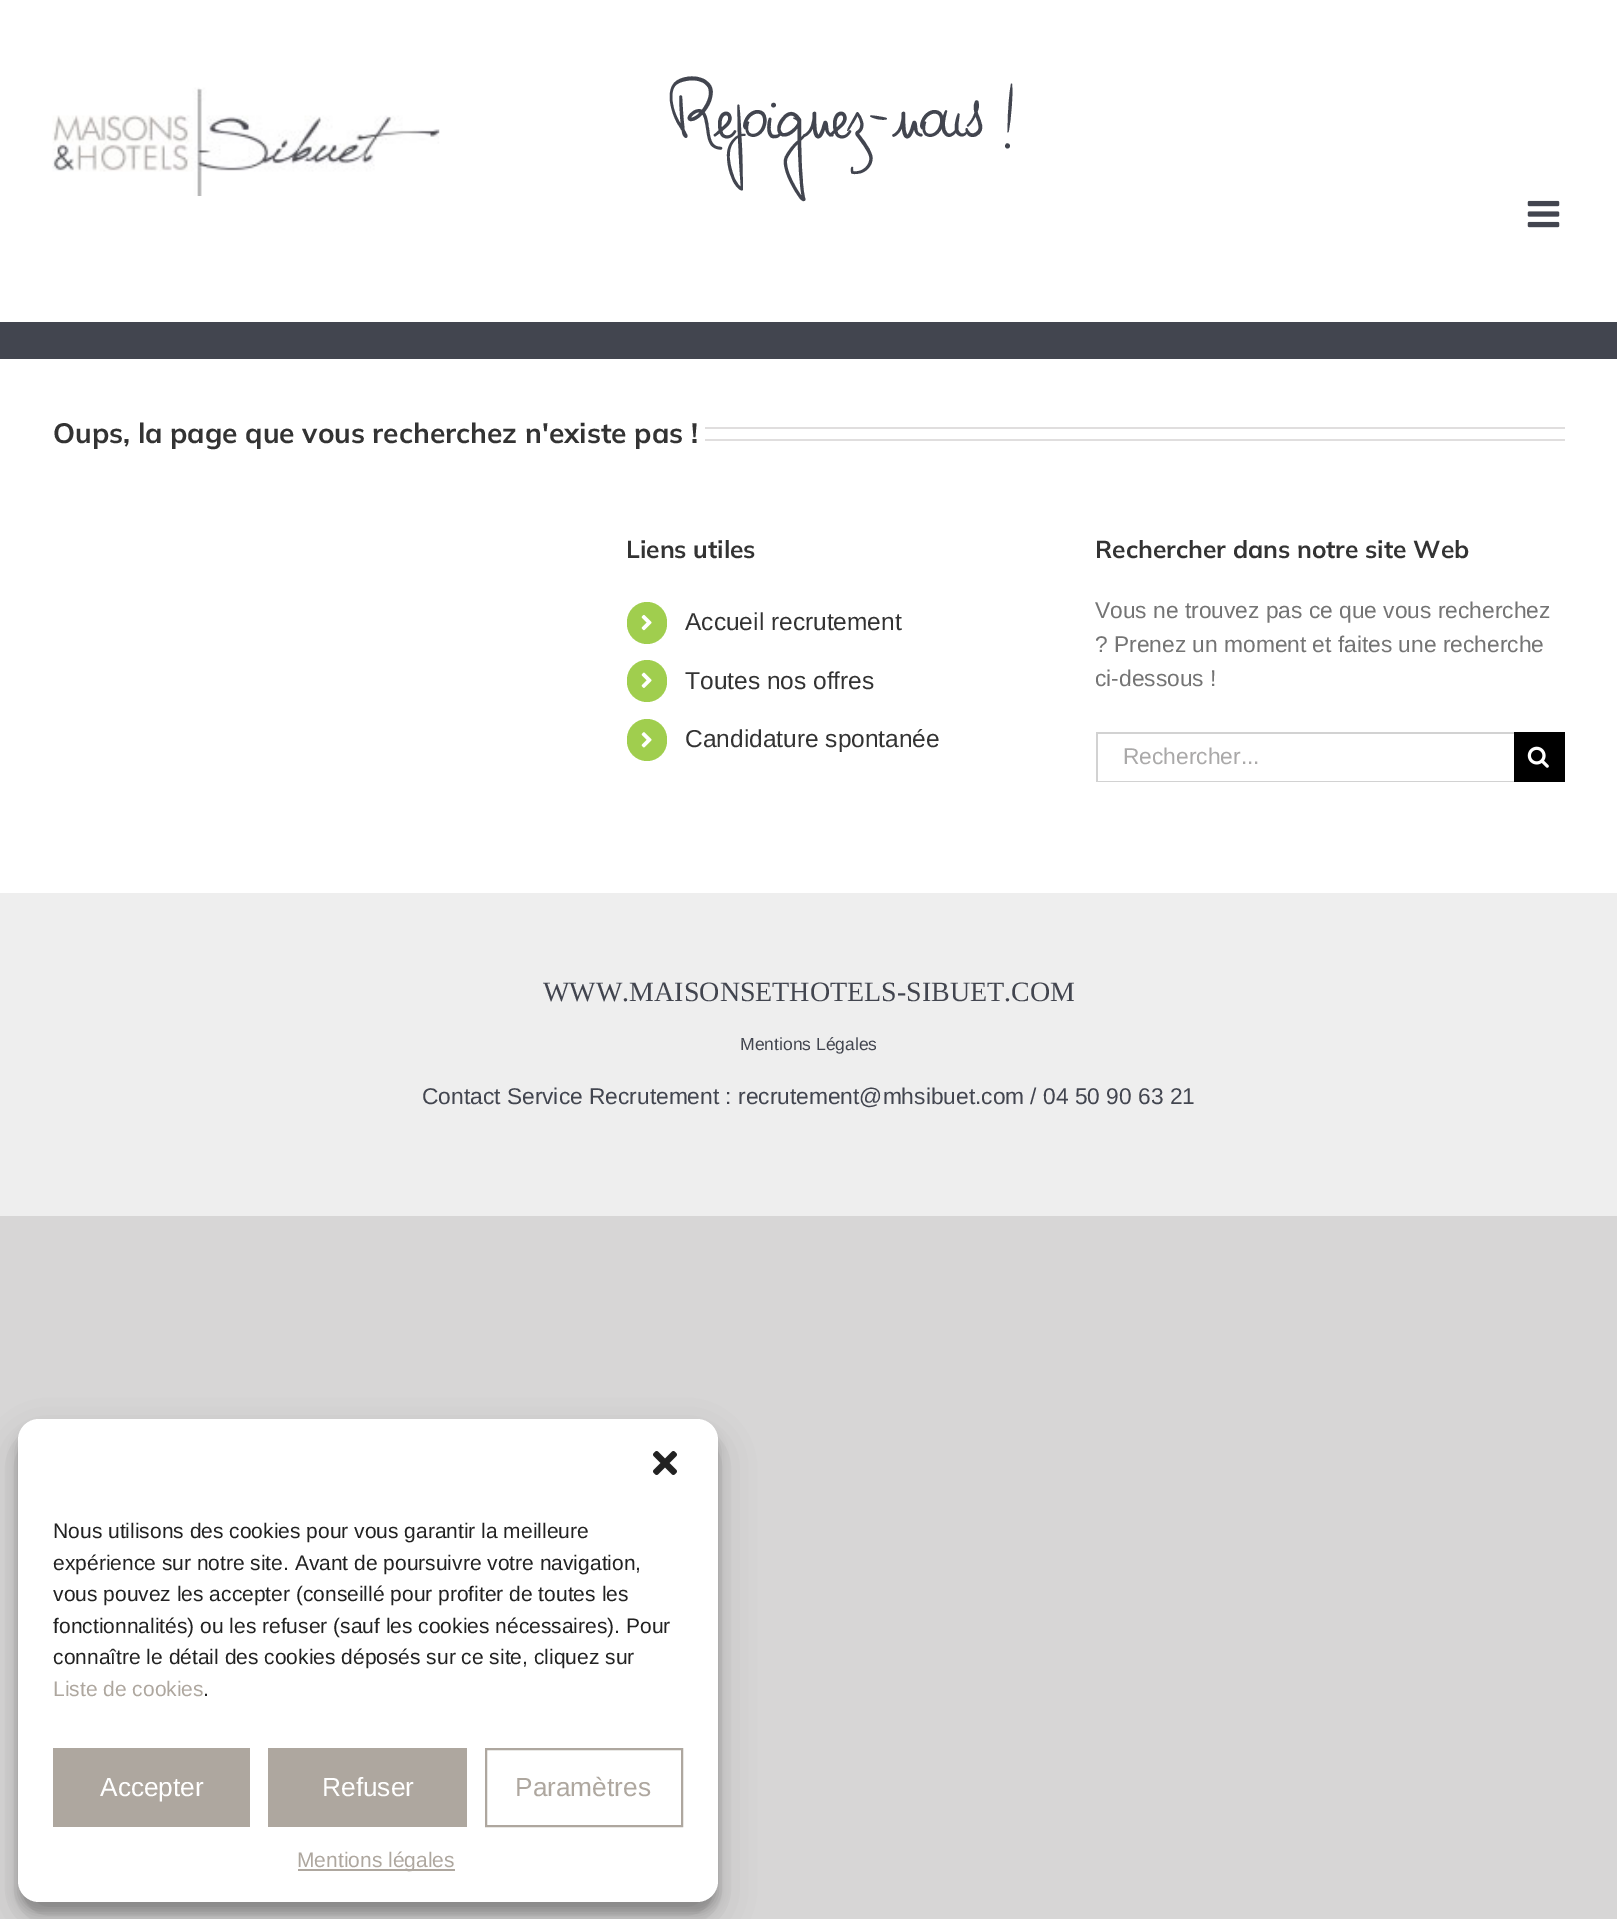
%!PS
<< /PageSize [1617 1919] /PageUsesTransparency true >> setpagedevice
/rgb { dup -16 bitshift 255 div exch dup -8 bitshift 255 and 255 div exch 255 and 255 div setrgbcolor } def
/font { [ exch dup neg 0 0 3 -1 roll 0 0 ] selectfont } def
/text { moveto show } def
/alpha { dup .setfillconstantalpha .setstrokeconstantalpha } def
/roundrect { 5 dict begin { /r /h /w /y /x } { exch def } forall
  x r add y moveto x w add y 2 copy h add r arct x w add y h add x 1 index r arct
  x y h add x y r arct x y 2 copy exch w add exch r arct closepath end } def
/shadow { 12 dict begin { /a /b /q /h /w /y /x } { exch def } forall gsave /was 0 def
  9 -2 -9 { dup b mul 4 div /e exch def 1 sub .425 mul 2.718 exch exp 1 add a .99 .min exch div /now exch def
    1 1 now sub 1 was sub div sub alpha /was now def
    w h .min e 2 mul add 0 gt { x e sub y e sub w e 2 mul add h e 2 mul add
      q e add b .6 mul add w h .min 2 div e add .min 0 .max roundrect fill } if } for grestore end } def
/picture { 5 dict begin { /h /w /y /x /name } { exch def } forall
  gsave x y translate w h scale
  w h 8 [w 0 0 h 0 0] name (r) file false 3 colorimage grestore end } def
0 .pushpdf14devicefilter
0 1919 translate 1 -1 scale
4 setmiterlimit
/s1 { /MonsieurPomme-Regular 105 font 16#42454F rgb } def
/s2 { /Mulish-ExtraLight 28 font 16#333333 rgb } def
/s3 { /Mulish-ExtraLight 24.5 font 16#333333 rgb } def
/s4 { /LiberationSans-Regular 24.5 font 16#333333 rgb } def
/s5 { /LiberationSans-Regular 22.75 font 16#747474 rgb } def
/s6 { /LiberationSans-Regular 22.75 font 16#AAA9A9 rgb } def
/s7 { /LiberationSerif-Regular 28 font 16#42454F rgb } def
/s8 { /LiberationSans-Regular 17.5 font 16#42454F rgb } def
/s9 { /LiberationSans-Regular 22.75 font 16#42454F rgb } def
/s10 { /LiberationSans-Regular 21 font 16#222222 rgb } def
/s11 { /LiberationSans-Regular 21 font 16#AEA79F rgb } def
/s12 { /LiberationSans-Regular 26.25 font 16#FFFFFF rgb } def
/s13 { /LiberationSans-Regular 26.25 font 16#AEA79F rgb } def
16#D7D6D6 rgb
0 0 1617 1919 rectfill
16#FFFFFF rgb
0 0 1617 893 rectfill
s1
(Rejoignez-nous !) 669 137 text
(pic1.raw) 52 87 388 109 picture
(pic2.raw) 1527 200 33 28 picture
0 322 1617 37 rectfill
s2
(Oups, la page que vous recherchez n'existe pas !) 53 443 text
16#E0DEDE rgb
705 427 860 2 rectfill
705 439 860 2 rectfill
s3
(Liens utiles) 626 558 text
16#A0CE4E rgb
627 602 40 42 20 roundrect fill
(pic3.raw) 641 614 11 17 picture
s4
(Accueil recrutement) 685 630 text
16#A0CE4E rgb
627 660 40 42 20 roundrect fill
(pic4.raw) 641 672 11 16 picture
s4
(Toutes nos offres) 685 689 text
16#A0CE4E rgb
627 719 40 42 20 roundrect fill
(pic5.raw) 641 732 11 16 picture
s4
(Candidature spontanée) 685 747 text
s3
(Rechercher dans notre site Web) 1095 558 text
s5
(Vous ne trouvez pas ce que vous recherchez) 1095 618 text
(? Prenez un moment et faites une recherche) 1095 652 text
(ci-dessous !) 1095 686 text
16#D2D2D2 rgb
1096 732 418 2 rectfill
1096 781 418 1 rectfill
1096 732 2 50 rectfill
s6
(Rechercher...) 1123 764 text
16#000000 rgb
1514 732 51 50 rectfill
(pic6.raw) 1527 746 22 22 picture
16#EEEEEE rgb
0 893 1617 323 rectfill
s7
(WWW.MAISONSETHOTELS-SIBUET.COM) 543 1001 text
s8
(Mentions Légales) 740 1050 text
s9
(Contact Service Recrutement : recrutement@mhsibuet.com / 04 50 90 63 21) 422 1104 text
16#000000 rgb
18 1430 700 483 21 5 0.23 shadow
18 1437 700 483 21 17.5 0.19 shadow
16#FFFFFF rgb
18 1419 700 483 21 roundrect fill
(pic7.raw) 653 1451 24 24 picture
s10
(Nous utilisons des cookies pour vous garantir la meilleure) 53 1538 text
(expérience sur notre site. Avant de poursuivre votre navigation,) 53 1570 text
(vous pouvez les accepter \(conseillé pour profiter de toutes les) 53 1601 text
(fonctionnalités\) ou les refuser \(sauf les cookies nécessaires\). Pour) 53 1633 text
(connaître le détail des cookies déposés sur ce site, cliquez sur) 53 1664 text
s11
(Liste de cookies) 53 1696 text
s10
(.) 203 1696 text
16#AEA79F rgb
53 1748 197 79 rectfill
s12
(Accepter) 100 1796 text
16#AEA79F rgb
268 1748 199 79 rectfill
s12
(Refuser) 322 1796 text
16#AEA79F rgb
2 setlinewidth
486 1749 196 77 rectstroke
(Paramètres) 515 1796 text
298 1869 157 2 rectfill
s11
(Mentions légales) 297 1867 text
.poppdf14devicefilter showpage
